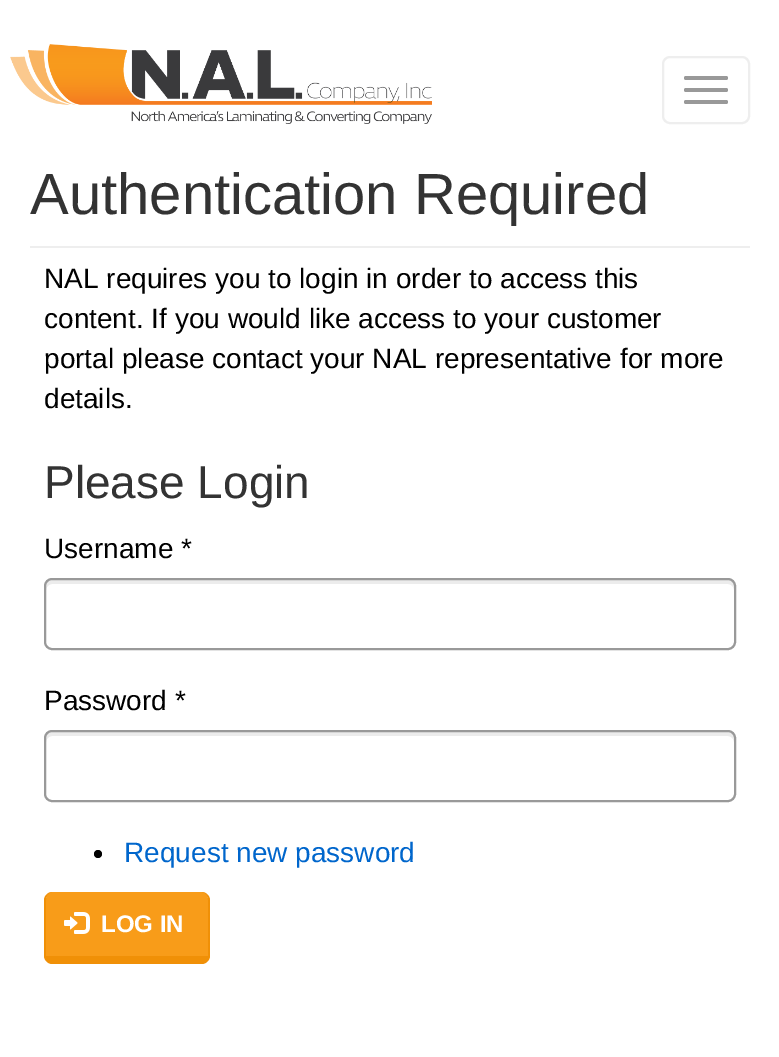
%!PS
<< /PageSize [779 1057] >> setpagedevice
/rgb { dup -16 bitshift 255 div exch dup -8 bitshift 255 and 255 div exch 255 and 255 div setrgbcolor } def
/font { [ exch dup neg 0 0 3 -1 roll 0 0 ] selectfont } def
/text { moveto show } def
/circle { newpath 0 360 arc closepath } def
/roundrect { 5 dict begin { /r /h /w /y /x } { exch def } forall
  x r add y moveto x w add y 2 copy h add r arct x w add y h add x 1 index r arct
  x y h add x y r arct x y 2 copy exch w add exch r arct closepath end } def
/picture { 5 dict begin { /h /w /y /x /name } { exch def } forall
  gsave x y translate w h scale
  w h 8 [w 0 0 h 0 0] name (r) file false 3 colorimage grestore end } def
0 1057 translate 1 -1 scale
4 setmiterlimit
/s1 { /LiberationSans-Regular 58 font 16#333333 rgb } def
/s2 { /LiberationSans-Regular 28 font 16#000000 rgb } def
/s3 { /LiberationSans-Regular 46 font 16#333333 rgb } def
/s4 { /LiberationSans-Regular 28 font 16#0066CC rgb } def
/s5 { /LiberationSans-Bold 24 font 16#FFFFFF rgb } def
16#FFFFFF rgb
0 0 779 1057 rectfill
(pic1.raw) 10 44 422 80 picture
16#EEEEEE rgb
2 setlinewidth
663 57 86 66 7 roundrect stroke
16#999999 rgb
684 76 44 4 2 roundrect fill
684 88 44 4 2 roundrect fill
684 100 44 4 2 roundrect fill
16#EEEEEE rgb
30 246 720 2 rectfill
s1
(Authentication Required) 30 214 text
s2
(NAL requires you to login in order to access this) 44 288 text
(content. If you would like access to your customer) 44 328 text
(portal please contact your NAL representative for more) 44 368 text
(details.) 44 408 text
s3
(Please Login) 44 498 text
s2
(Username *) 44 558 text
16#ECECEC rgb
52 584 moveto 728 584 lineto 731 584 734 587 734 590 curveto 734 586 lineto 734 583 731 580 728 580 curveto 52 580 lineto 49 580 46 583 46 586 curveto 46 590 lineto 46 587 49 584 52 584 curveto closepath fill
16#999999 rgb
45 579 690 70 7 roundrect stroke
s2
(Password *) 44 710 text
16#ECECEC rgb
52 736 moveto 728 736 lineto 731 736 734 739 734 742 curveto 734 738 lineto 734 735 731 732 728 732 curveto 52 732 lineto 49 732 46 735 46 738 curveto 46 742 lineto 46 739 49 736 52 736 curveto closepath fill
16#999999 rgb
45 731 690 70 7 roundrect stroke
16#000000 rgb
98 854 4 circle fill
s4
(Request new password) 124 862 text
16#F89C19 rgb
52 892 moveto 202 892 lineto 205 892 208 896 208 900 curveto 208 956 lineto 46 956 lineto 46 900 lineto 46 896 49 892 52 892 curveto closepath fill
16#F09007 rgb
52 892 moveto 202 892 lineto 206 892 210 896 210 900 curveto 210 956 lineto 210 960 206 964 202 964 curveto 52 964 lineto 48 964 44 960 44 956 curveto 44 900 lineto 44 896 48 892 52 892 curveto closepath 52 892 moveto 202 892 lineto 205 892 208 896 208 900 curveto 208 956 lineto 46 956 lineto 46 900 lineto 46 896 49 892 52 892 curveto closepath eofill
(pic2.raw) 64 912 26 22 picture
s5
(LOG IN) 101 932 text
showpage
